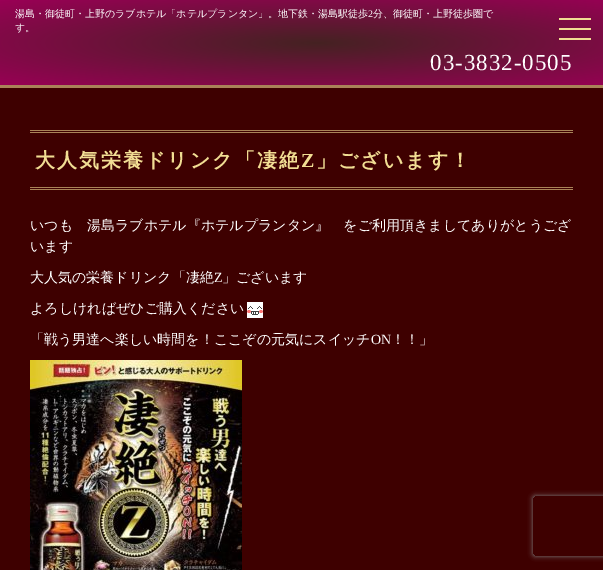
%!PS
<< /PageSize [603 570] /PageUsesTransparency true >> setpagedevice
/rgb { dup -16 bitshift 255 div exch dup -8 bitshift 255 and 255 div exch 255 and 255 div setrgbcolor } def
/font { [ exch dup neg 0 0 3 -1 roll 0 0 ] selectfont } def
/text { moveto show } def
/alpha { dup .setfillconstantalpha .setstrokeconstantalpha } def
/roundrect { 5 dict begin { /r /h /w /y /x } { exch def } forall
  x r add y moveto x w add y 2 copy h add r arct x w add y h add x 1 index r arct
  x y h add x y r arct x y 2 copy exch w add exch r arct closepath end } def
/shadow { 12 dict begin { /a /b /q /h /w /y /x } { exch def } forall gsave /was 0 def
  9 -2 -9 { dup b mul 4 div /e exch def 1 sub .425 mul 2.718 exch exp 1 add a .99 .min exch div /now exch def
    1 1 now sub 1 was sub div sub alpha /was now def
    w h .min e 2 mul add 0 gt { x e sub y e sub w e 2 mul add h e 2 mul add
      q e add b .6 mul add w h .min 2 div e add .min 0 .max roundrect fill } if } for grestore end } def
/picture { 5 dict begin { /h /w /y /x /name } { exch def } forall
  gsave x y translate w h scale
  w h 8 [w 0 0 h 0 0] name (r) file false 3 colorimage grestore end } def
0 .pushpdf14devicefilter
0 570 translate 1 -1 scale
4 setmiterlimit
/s1 { /WenQuanYiZenHei-Medium 10 font 16#FFFFFF rgb } def
/s2 { /LiberationSerif-Regular 10 font 16#FFFFFF rgb } def
/s3 { /WenQuanYiZenHei-Medium 14 font 16#FFFFFF rgb } def
/s4 { /LiberationSerif-Regular 14 font 16#FFFFFF rgb } def
16#3E0000 rgb
0 0 603 570 rectfill
gsave 0 0 moveto 603 0 lineto 603 85 lineto 0 85 lineto closepath clip newpath 317 43 translate 448 60 scale
<< /ShadingType 3 /ColorSpace /DeviceRGB /Coords [0 0 0 0 0 1] /Extend [true true] /Function << /FunctionType 2 /Domain [0 1] /C0 [0.271 0.133 0.133] /C1 [0.6 0 0.333] /N 1 >> >> shfill grestore
16#A98358 rgb
0 85 603 3 rectfill
s1
(湯島・御徒町・上野のラブホテル「ホテルプランタン」。地下鉄・湯島駅徒歩) 15 17 text
s2
(2) 368 17 text
s1
(分、御徒町・上野徒歩圏で) 373 17 text
(す。) 15 31 text
/LiberationSerif-Regular 23 font
430 70 moveto 1 0 (03-3832-0505) ashow
16#F1DD93 rgb
559 28 32 2 rectfill
559 18 32 2 rectfill
559 38 32 2 rectfill
16#A98358 rgb
30 130 543 1 rectfill
30 132 543 1 rectfill
30 187 543 1 rectfill
30 189 543 1 rectfill
/WenQuanYiZenHei-Bold 20 font
16#F1DD93 rgb
35 167 moveto 2 0 (大人気栄養ドリンク「凄絶) ashow
/LiberationSerif-Bold 20 font
301 167 moveto 2 0 (Z) ashow
/WenQuanYiZenHei-Bold 20 font
316 167 moveto 2 0 (」ございます！) ashow
s3
(いつも　湯島ラブホテル『ホテルプランタン』　をご利用頂きましてありがとうござ) 30 230 text
(います) 30 251 text
(大人気の栄養ドリンク「凄絶) 30 282 text
s4
(Z) 214 282 text
s3
(」ございます) 222 282 text
(よろしければぜひご購入ください) 30 313 text
(pic1.raw) 247 302 16 16 picture
(「戦う男達へ楽しい時間を！ここぞの元気にスイッチ) 30 344 text
s4
(ON) 371 344 text
s3
(！！」) 391 344 text
(pic2.raw) 30 360 212 210 picture
gsave
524 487 moveto 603 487 lineto 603 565 lineto 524 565 lineto closepath 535 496 moveto 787 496 lineto 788 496 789 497 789 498 curveto 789 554 lineto 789 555 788 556 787 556 curveto 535 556 lineto 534 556 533 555 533 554 curveto 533 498 lineto 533 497 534 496 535 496 curveto closepath eoclip newpath
16#808080 rgb
533 496 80 60 2 2.5 1 shadow
grestore
.poppdf14devicefilter showpage
